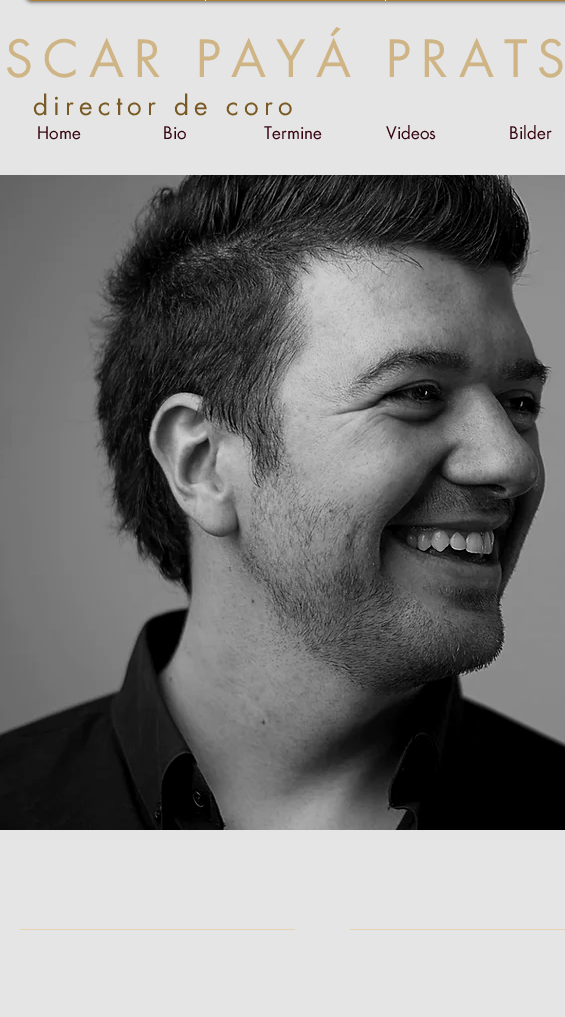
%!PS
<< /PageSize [565 1017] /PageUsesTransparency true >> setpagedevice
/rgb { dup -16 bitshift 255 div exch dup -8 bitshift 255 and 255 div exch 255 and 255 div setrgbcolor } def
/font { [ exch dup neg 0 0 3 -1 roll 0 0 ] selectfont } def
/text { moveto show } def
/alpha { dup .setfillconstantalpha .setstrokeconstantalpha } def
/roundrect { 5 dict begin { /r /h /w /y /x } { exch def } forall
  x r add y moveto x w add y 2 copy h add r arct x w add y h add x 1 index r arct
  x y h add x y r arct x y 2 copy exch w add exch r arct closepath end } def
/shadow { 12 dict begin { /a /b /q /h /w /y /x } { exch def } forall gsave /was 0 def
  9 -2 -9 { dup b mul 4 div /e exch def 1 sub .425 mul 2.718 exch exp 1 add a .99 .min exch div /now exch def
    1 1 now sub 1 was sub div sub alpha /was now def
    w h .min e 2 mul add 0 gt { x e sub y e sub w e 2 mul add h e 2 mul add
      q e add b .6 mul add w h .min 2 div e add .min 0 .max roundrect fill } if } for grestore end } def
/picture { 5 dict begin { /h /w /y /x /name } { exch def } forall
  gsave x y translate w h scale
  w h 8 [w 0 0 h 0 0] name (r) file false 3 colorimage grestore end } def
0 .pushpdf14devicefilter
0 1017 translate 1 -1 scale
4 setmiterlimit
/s1 { /futura-Regular 17 font 16#360411 rgb } def
16#E5E5E5 rgb
0 0 565 1017 rectfill
16#000000 rgb
25 -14 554 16 8 2 0.6 shadow
(pic1.raw) 30 0 3 1 picture
16#B78837 rgb
33 -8 moveto 205 -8 lineto 205 1 lineto 33 1 lineto 28.5 1 25 -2.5 25 -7 curveto 25 0 lineto 25 -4.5 28.5 -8 33 -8 curveto closepath fill
(pic2.raw) 30 0 175 1 picture
205 0 180 1 rectfill
16#FFFFFF rgb
205 0 1 1 rectfill
0.06 alpha
16#000000 rgb
206 0 179 1 rectfill
1 alpha
16#FFFFFF rgb
385 0 1 1 rectfill
16#AC8034 rgb
386 0 179 1 rectfill
/futura-Regular 50 font
16#CFB486 rgb
5 77 moveto 10 0 (SCAR PAYÁ PRATS) ashow
/futura-Regular 26 font
16#7A5A24 rgb
33 115 moveto 5.25 0 (director de coro) ashow
s1
(Home) 37 139 text
(Bio) 163 139 text
(Termine) 264 139 text
(Videos) 386 139 text
(Bilder) 509 139 text
(pic3.raw) 0 175 565 655 picture
16#E7D3B1 rgb
20 929 275 1 rectfill
350 929 215 1 rectfill
.poppdf14devicefilter showpage
